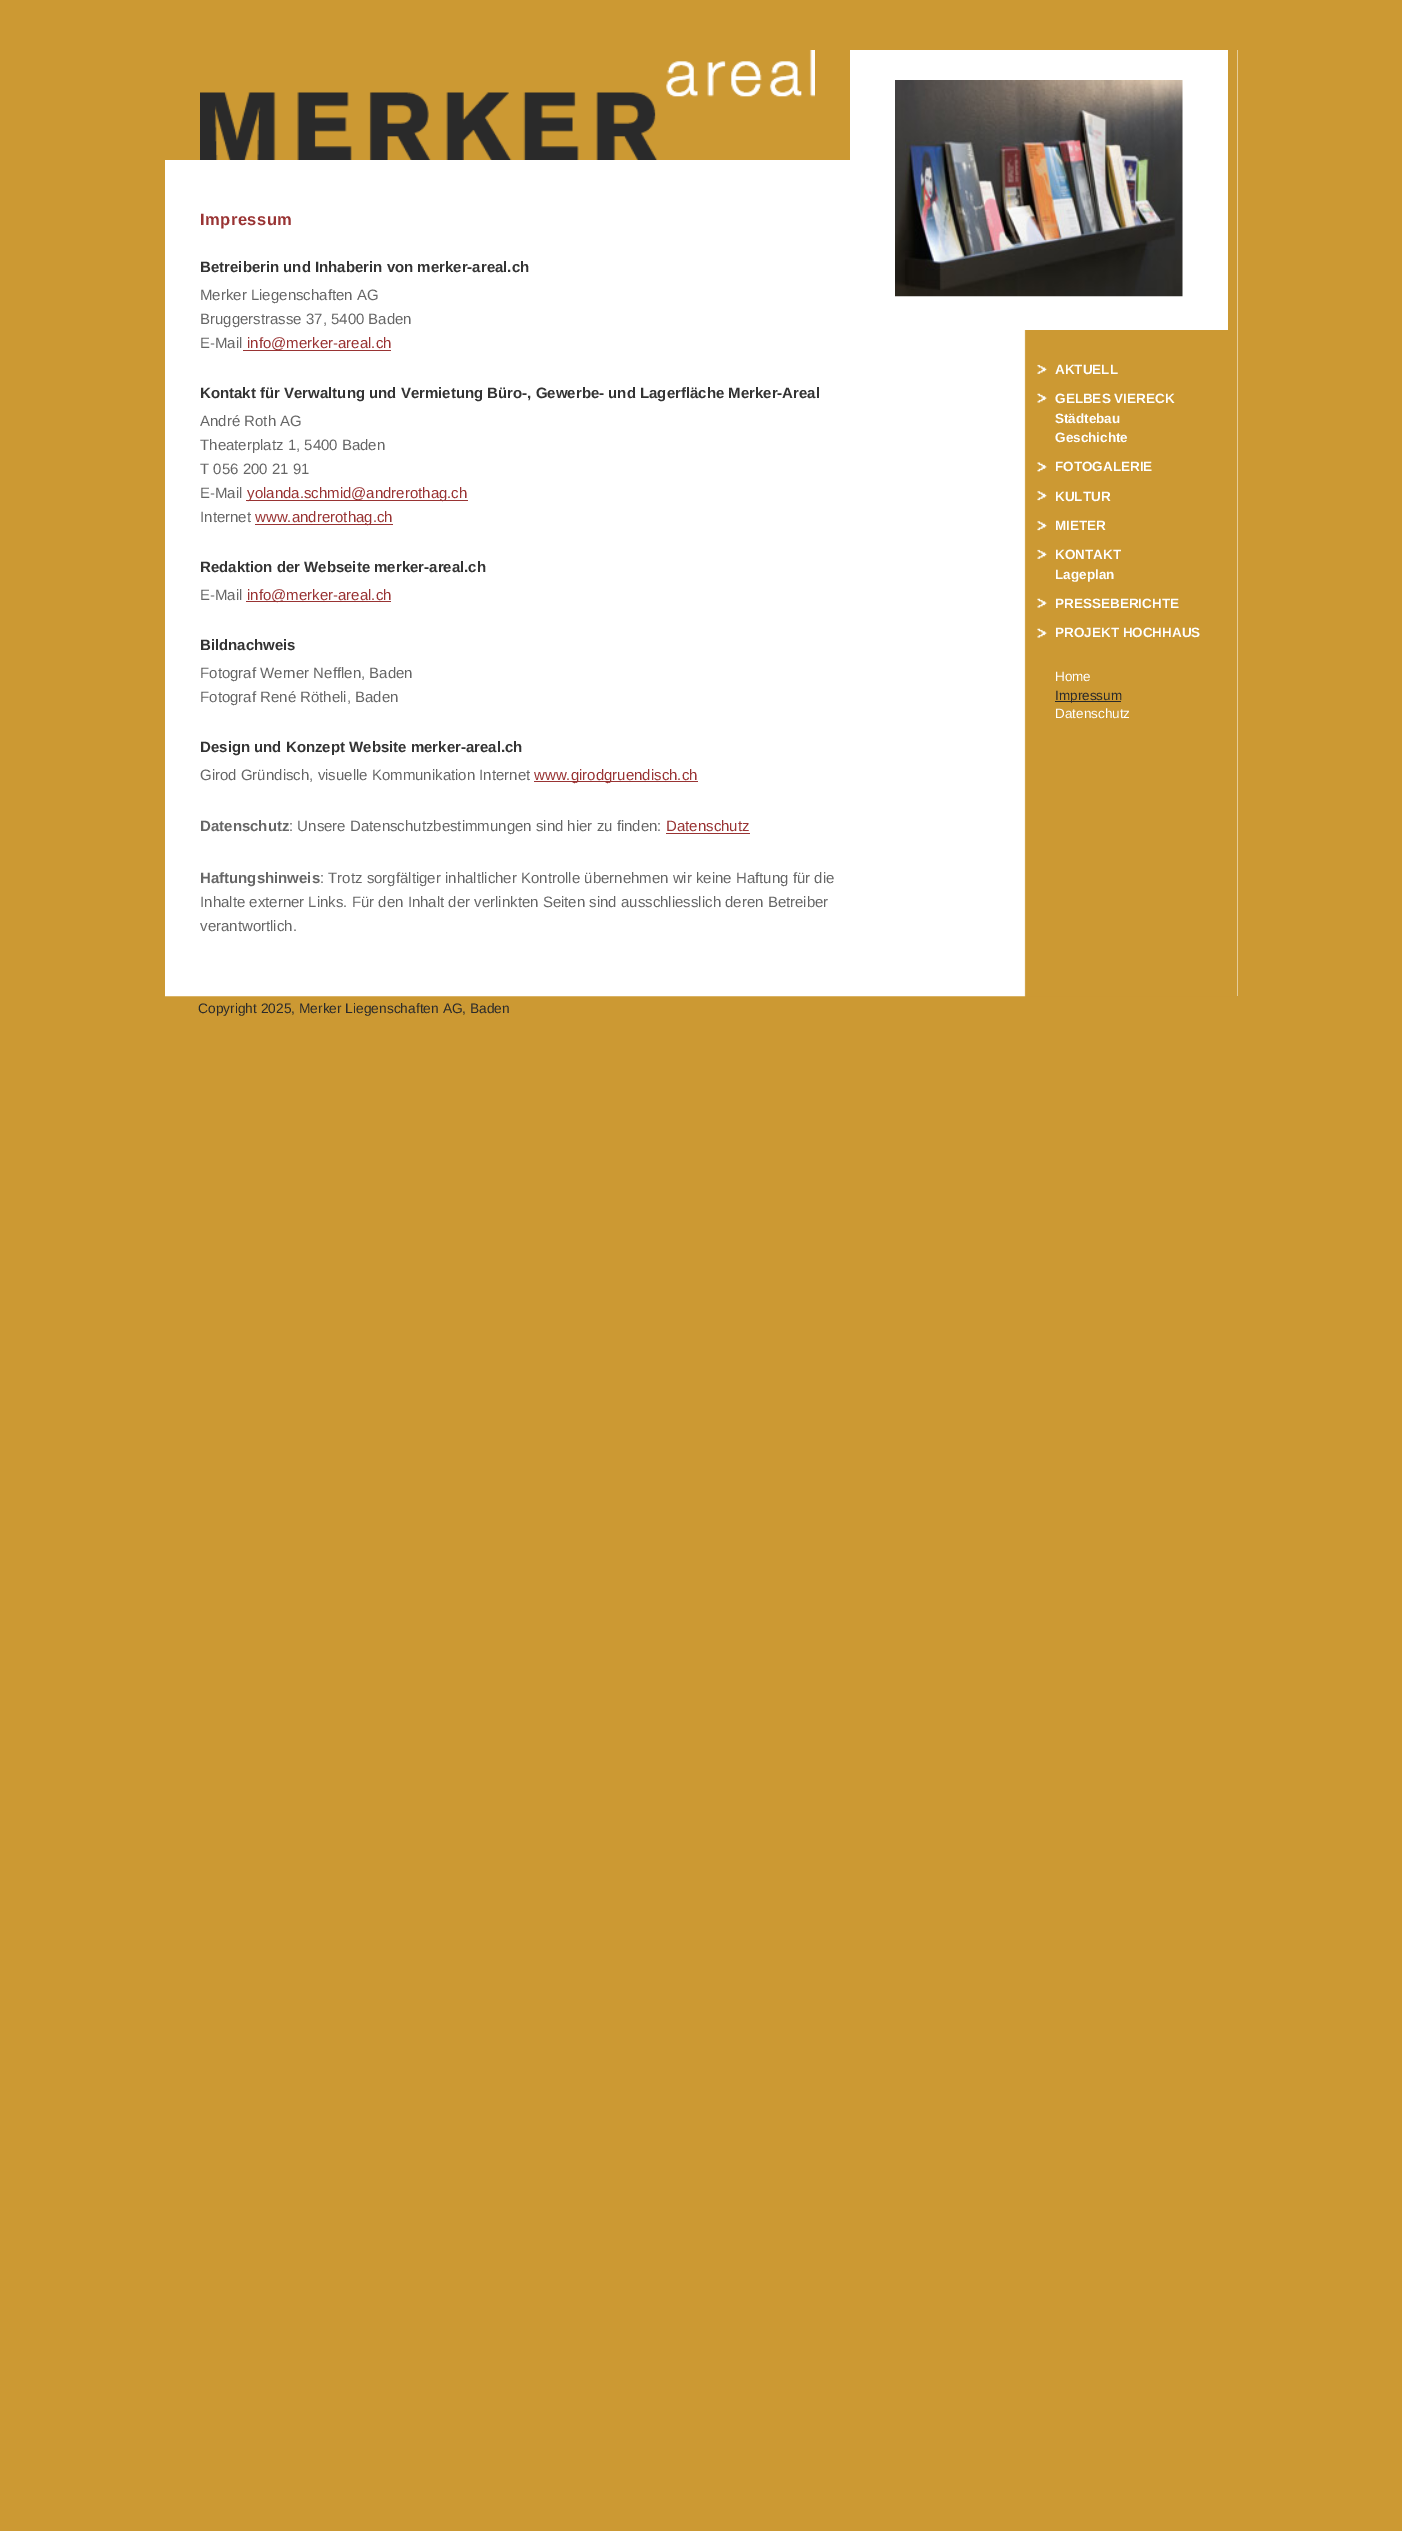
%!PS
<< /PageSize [1402 2531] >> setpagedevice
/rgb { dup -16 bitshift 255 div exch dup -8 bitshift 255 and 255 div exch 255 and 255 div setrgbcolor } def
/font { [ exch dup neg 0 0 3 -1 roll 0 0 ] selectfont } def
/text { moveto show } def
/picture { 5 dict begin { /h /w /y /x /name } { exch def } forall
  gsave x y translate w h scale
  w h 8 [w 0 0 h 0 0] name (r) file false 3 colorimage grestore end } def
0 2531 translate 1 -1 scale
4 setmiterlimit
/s1 { /LiberationSans-Bold 15 font 16#333333 rgb } def
/s2 { /LiberationSans-Regular 15 font 16#666666 rgb } def
/s3 { /LiberationSans-Regular 15 font 16#993333 rgb } def
/s4 { /LiberationSans-Bold 15 font 16#666666 rgb } def
/s5 { /LiberationSans-Bold 13.5 font 16#FFFFFF rgb } def
/s6 { /LiberationSans-Regular 13.5 font 16#FFFFFF rgb } def
/s7 { /LiberationSans-Regular 13.5 font 16#2A2A2A rgb } def
/s8 { /LiberationSans-Regular 13.75 font 16#2A2A2A rgb } def
16#CC9933 rgb
0 0 1402 2531 rectfill
16#FFFFFF rgb
1237 50 1 946 rectfill
(pic1.raw) 165 50 1073 947 picture
16#CC9933 rgb
165 50 685 110 rectfill
(pic2.raw) 200 50 615 110 picture
/LiberationSans-Bold 16.5 font
16#993333 rgb
200 225 moveto 0.5 0 (Impressum) ashow
s1
(Betreiberin und Inhaberin von merker-areal.ch) 200 272 text
s2
(Merker Liegenschaften AG) 200 300 text
(Bruggerstrasse 37, 5400 Baden) 200 324 text
(E-Mail) 200 348 text
16#993333 rgb
243 350 148 1 rectfill
(info@merker-areal.ch) 247 348 text
s1
(Kontakt für Verwaltung und Vermietung Büro-, Gewerbe- und Lagerfläche Merker-Areal) 200 398 text
s2
(André Roth AG) 200 426 text
(Theaterplatz 1, 5400 Baden) 200 450 text
(T 056 200 21 91) 200 474 text
(E-Mail) 200 498 text
16#993333 rgb
246 500 222 1 rectfill
(yolanda.schmid@andrerothag.ch) 247 498 text
s2
(Internet) 200 522 text
16#993333 rgb
255 524 138 1 rectfill
(www.andrerothag.ch) 255 522 text
s1
(Redaktion der Webseite merker-areal.ch) 200 572 text
s2
(E-Mail) 200 600 text
16#993333 rgb
246 601 145 1 rectfill
(info@merker-areal.ch) 247 600 text
s1
(Bildnachweis) 200 650 text
s2
(Fotograf Werner Nefflen, Baden) 200 678 text
(Fotograf René Rötheli, Baden) 200 702 text
s1
(Design und Konzept Website merker-areal.ch) 200 752 text
s2
(Girod Gründisch, visuelle Kommunikation Internet) 200 780 text
16#993333 rgb
534 781 164 1 rectfill
(www.girodgruendisch.ch) 534 780 text
s4
(Datenschutz) 200 831 text
s2
(: Unsere Datenschutzbestimmungen sind hier zu finden:) 289 831 text
s3
(Datenschutz) 666 831 text
666 833 84 1 rectfill
s4
(Haftungshinweis) 200 883 text
s2
(: Trotz sorgfältiger inhaltlicher Kontrolle übernehmen wir keine Haftung für die) 320 883 text
(Inhalte externer Links. Für den Inhalt der verlinkten Seiten sind ausschliesslich deren Betreiber) 200 907 text
(verantwortlich.) 200 931 text
16#FFFFFF rgb
1024 50 204 280 rectfill
(pic3.raw) 895 80 288 217 picture
(pic4.raw) 1037 364 10 10 picture
s5
(AKTUELL) 1055 374 text
(pic5.raw) 1037 393 10 10 picture
(GELBES VIERECK) 1055 403 text
(Städtebau) 1055 423 text
(Geschichte) 1055 442 text
(pic6.raw) 1037 462 10 10 picture
(FOTOGALERIE) 1055 471 text
(pic7.raw) 1037 491 10 10 picture
(KULTUR) 1055 501 text
(pic7.raw) 1037 521 10 10 picture
(MIETER) 1055 530 text
(pic4.raw) 1037 549 10 10 picture
(KONTAKT) 1055 559 text
(Lageplan) 1055 579 text
(pic5.raw) 1037 598 10 10 picture
(PRESSEBERICHTE) 1055 608 text
(pic5.raw) 1037 628 10 10 picture
(PROJEKT HOCHHAUS) 1055 637 text
s6
(Home) 1055 681 text
16#2A2A2A rgb
1055 701 66 1 rectfill
(Impressum) 1055 700 text
s6
(Datenschutz) 1055 718 text
s8
(Copyright 2025, Merker Liegenschaften AG, Baden) 198 1013 text
showpage
